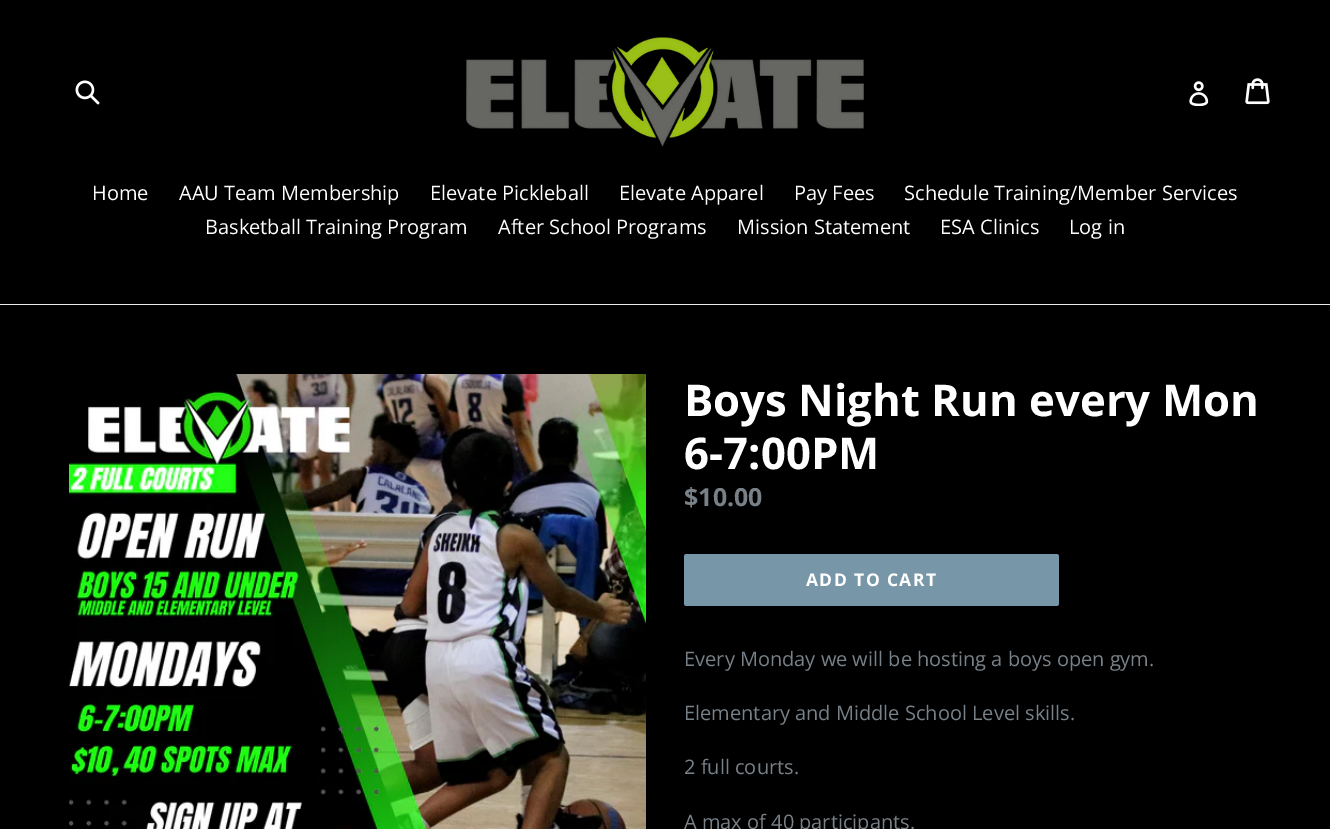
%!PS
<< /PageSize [1330 829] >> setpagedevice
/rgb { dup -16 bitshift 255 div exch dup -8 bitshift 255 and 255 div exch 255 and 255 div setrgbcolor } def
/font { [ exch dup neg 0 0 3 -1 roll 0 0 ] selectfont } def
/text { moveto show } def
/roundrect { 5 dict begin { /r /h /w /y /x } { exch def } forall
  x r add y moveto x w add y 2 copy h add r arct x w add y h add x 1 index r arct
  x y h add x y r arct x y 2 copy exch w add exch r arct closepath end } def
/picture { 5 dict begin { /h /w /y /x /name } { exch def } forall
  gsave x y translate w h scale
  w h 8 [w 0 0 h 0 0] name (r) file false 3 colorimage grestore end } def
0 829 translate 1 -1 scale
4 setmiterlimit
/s1 { /OpenSans-Regular 20 font 16#FFFFFF rgb } def
/s2 { /OpenSans-Bold 43.75 font 16#FFFFFF rgb } def
/s3 { /OpenSans-Bold 25 font 16#788188 rgb } def
/s4 { /OpenSans-Regular 20 font 16#788188 rgb } def
16#000000 rgb
0 0 1330 829 rectfill
(pic1.raw) 75 80 25 25 picture
(pic2.raw) 466 37 398 110 picture
(pic3.raw) 1189 81 20 25 picture
(pic4.raw) 1245 78 25 27 picture
16#E8E9EB rgb
0 304 1330 1 rectfill
s1
(Home) 92 200 text
(AAU Team Membership) 179 200 text
(Elevate Pickleball) 430 200 text
(Elevate Apparel) 619 200 text
(Pay Fees) 794 200 text
(Schedule Training/Member Services) 904 200 text
(Basketball Training Program) 205 234 text
(After School Programs) 498 234 text
(Mission Statement) 737 234 text
(ESA Clinics) 940 234 text
(Log in) 1069 234 text
(pic5.raw) 69 374 577 455 picture
s2
(Boys Night Run every Mon) 684 416 text
(6-7:00PM) 684 469 text
s3
($10.00) 684 506 text
16#7796A8 rgb
684 554 375 52 2.5 roundrect fill
/OpenSans-Bold 17.5 font
16#FFFFFF rgb
806 586 moveto 1.4 0 (ADD TO CART) ashow
s4
(Every Monday we will be hosting a boys open gym.) 684 666 text
(Elementary and Middle School Level skills.) 684 720 text
(2 full courts.) 684 774 text
(A max of 40 participants.) 684 829 text
showpage
